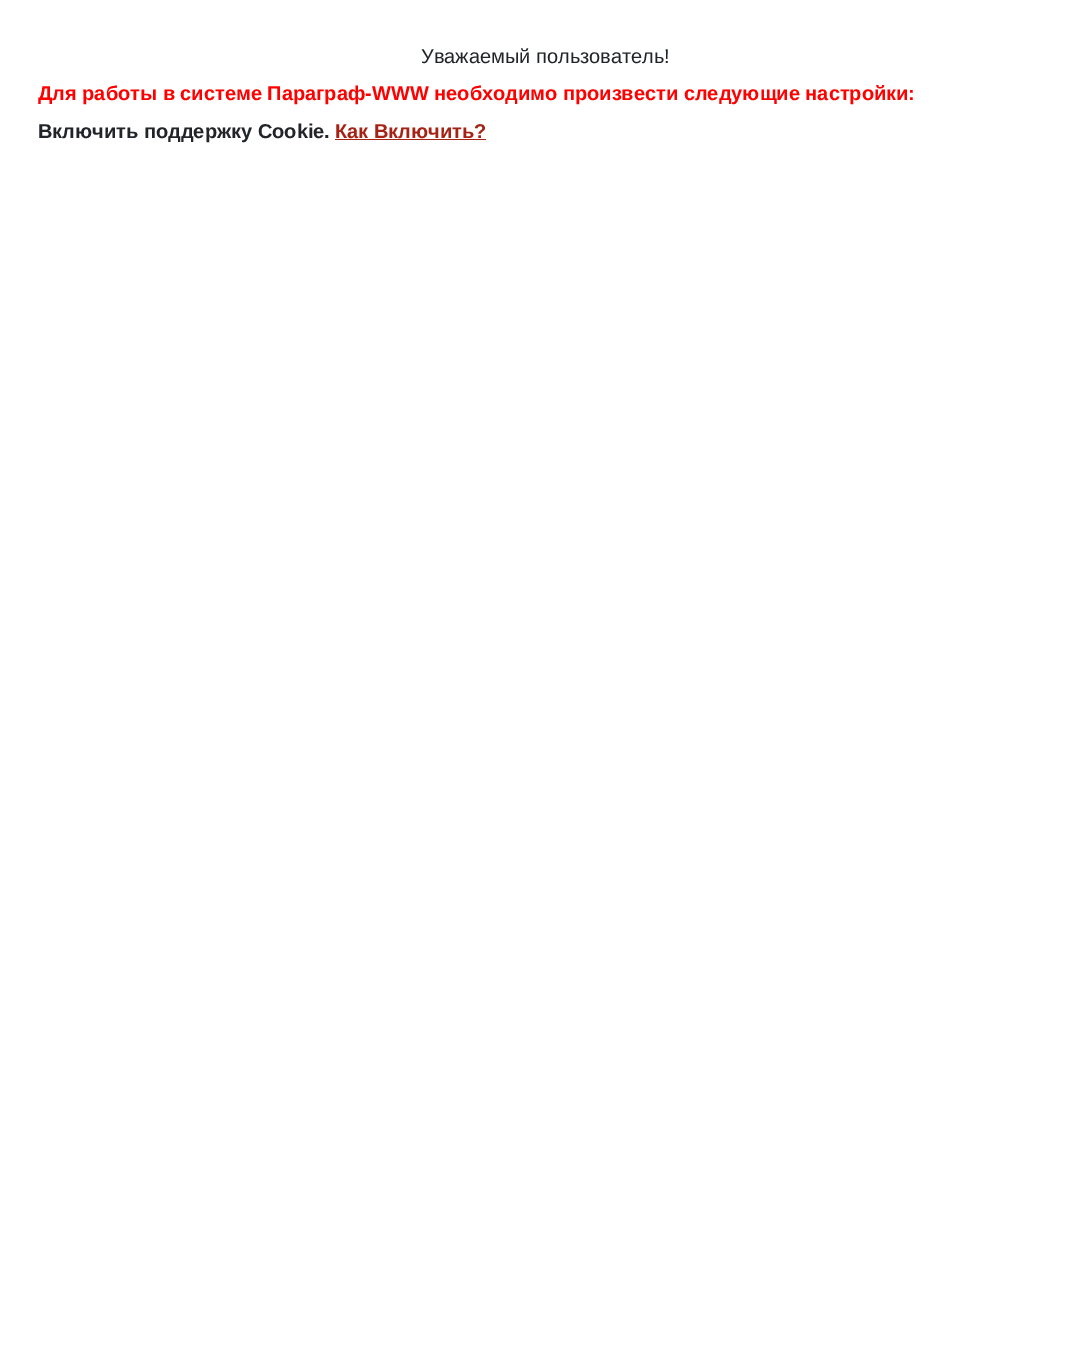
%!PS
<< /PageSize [1089 1357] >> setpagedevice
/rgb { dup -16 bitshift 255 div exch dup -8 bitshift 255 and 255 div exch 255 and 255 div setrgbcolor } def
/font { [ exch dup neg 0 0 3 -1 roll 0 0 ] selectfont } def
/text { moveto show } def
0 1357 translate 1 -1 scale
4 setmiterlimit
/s1 { /LiberationSans-Regular 20 font 16#212529 rgb } def
/s2 { /LiberationSans-Bold 20 font 16#FF0000 rgb } def
/s3 { /LiberationSans-Bold 20 font 16#212529 rgb } def
/s4 { /LiberationSans-Bold 20 font 16#A52315 rgb } def
16#FFFFFF rgb
0 0 1089 1357 rectfill
s1
(Уважаемый пользователь!) 421 63 text
s2
(Для работы в системе Параграф-WWW необходимо произвести следующие настройки:) 38 100 text
s3
(Включить поддержку Cookie.) 38 138 text
s4
(Как Включить?) 335 138 text
335 139 151 1 rectfill
showpage
